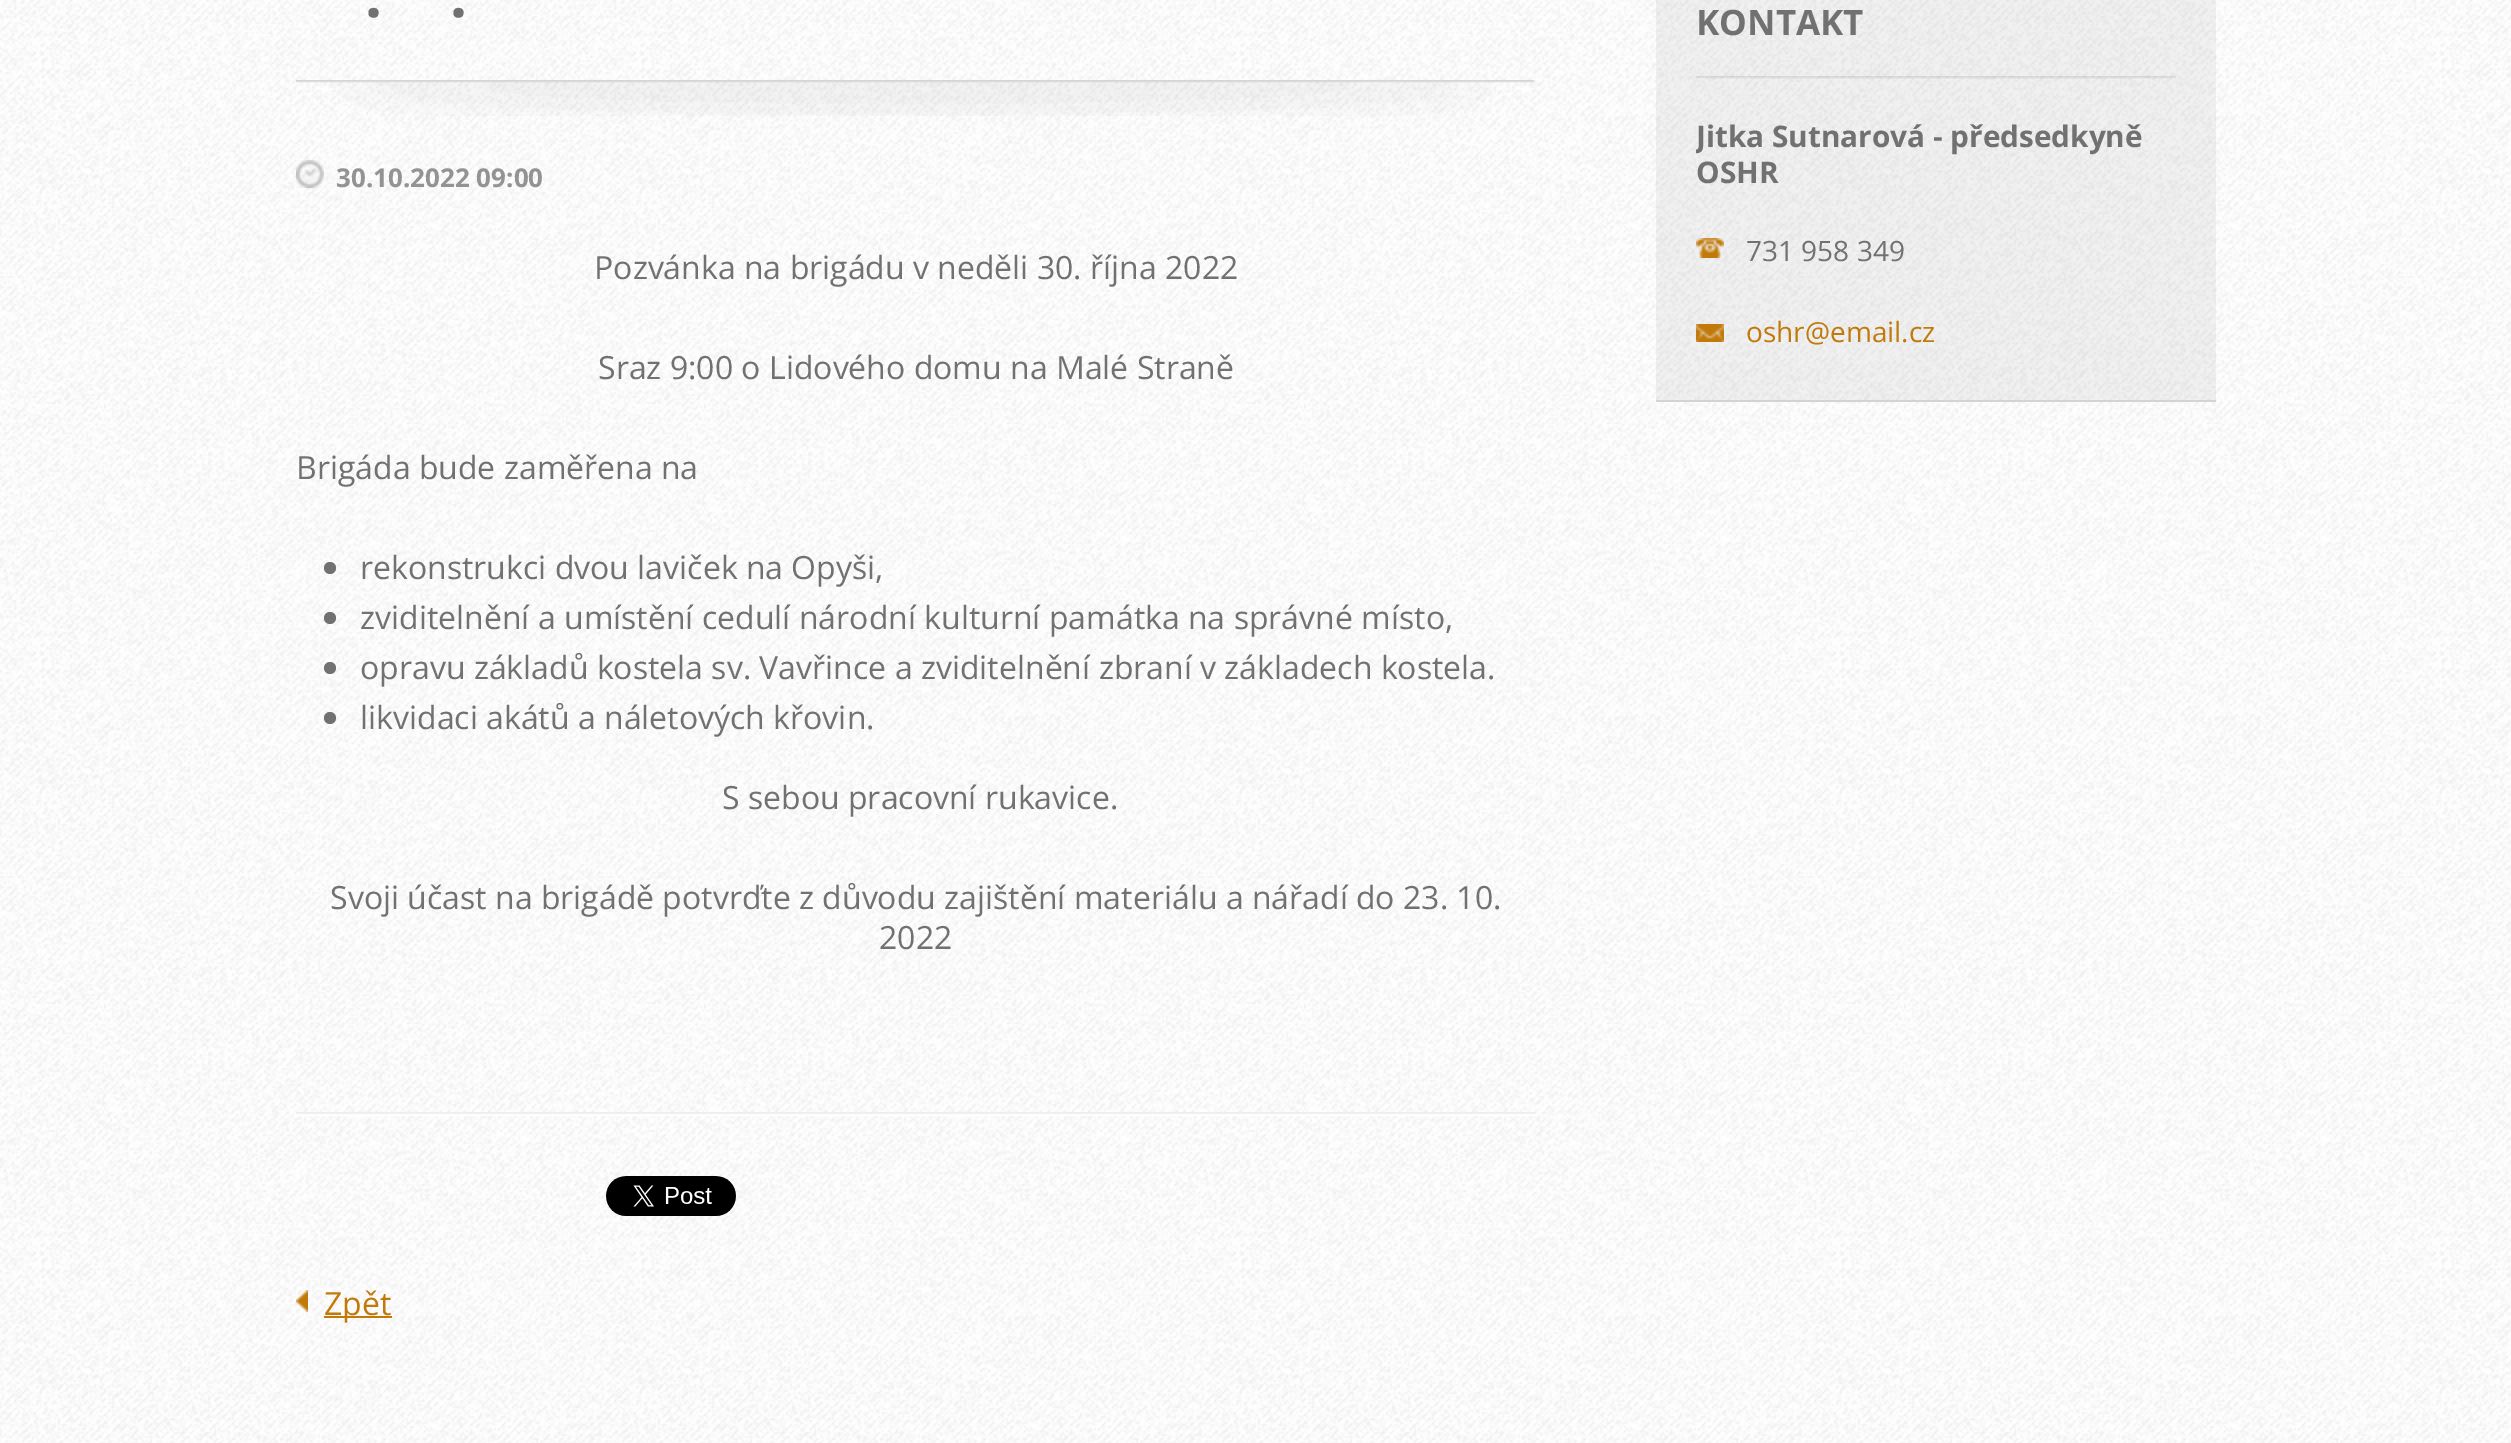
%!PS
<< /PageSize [2511 1443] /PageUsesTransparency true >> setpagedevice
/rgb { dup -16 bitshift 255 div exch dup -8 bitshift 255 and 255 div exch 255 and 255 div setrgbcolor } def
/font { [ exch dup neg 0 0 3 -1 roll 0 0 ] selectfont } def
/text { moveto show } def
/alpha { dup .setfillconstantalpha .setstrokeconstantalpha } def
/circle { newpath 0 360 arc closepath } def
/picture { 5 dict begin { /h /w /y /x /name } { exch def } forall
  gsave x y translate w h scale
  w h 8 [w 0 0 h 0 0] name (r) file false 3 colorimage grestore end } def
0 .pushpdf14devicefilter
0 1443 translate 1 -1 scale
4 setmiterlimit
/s1 { /OpenSans-Bold 60 font 16#717171 rgb } def
/s2 { /OpenSans-Bold 26 font 16#939393 rgb } def
/s3 { /OpenSans-Regular 32 font 16#717171 rgb } def
/s4 { /OpenSans-Regular 32 font 16#C17A0A rgb } def
/s5 { /OpenSans-Bold 35 font 16#717171 rgb } def
/s6 { /OpenSans-Bold 29.75 font 16#717171 rgb } def
/s7 { /OpenSans-Regular 28 font 16#717171 rgb } def
/s8 { /OpenSans-Regular 28 font 16#C17A0A rgb } def
16#FFFFFF rgb
0 0 2511 1443 rectfill
(pic1.raw) 0 0 2511 1443 picture
(pic2.raw) 296 80 1239 36 picture
s1
(.) 365 17 text
(.) 450 17 text
(pic3.raw) 296 160 28 28 picture
s2
(30.10.2022 09:00) 336 187 text
(pic4.raw) 296 1112 1240 4 picture
s3
(Pozvánka na brigádu v neděli 30. října 2022) 594 279 text
(Sraz 9:00 o Lidového domu na Malé Straně) 598 379 text
(Brigáda bude zaměřena na) 296 479 text
330 568 6 circle fill
(rekonstrukci dvou laviček na Opyši,) 360 579 text
330 618 6 circle fill
(zviditelnění a umístění cedulí národní kulturní památka na správné místo,) 360 629 text
330 668 6 circle fill
(opravu základů kostela sv. Vavřince a zviditelnění zbraní v základech kostela.) 360 679 text
330 718 6 circle fill
(likvidaci akátů a náletových křovin.) 360 729 text
(S sebou pracovní rukavice.) 722 809 text
(Svoji účast na brigádě potvrďte z důvodu zajištění materiálu a nářadí do 23. 10.) 330 909 text
(2022) 879 949 text
(pic5.raw) 606 1176 130 40 picture
(pic6.raw) 296 1290 12 22 picture
16#C17A0A rgb
324 1316 68 2 rectfill
(Zpět) 324 1315 text
0.05 alpha
16#000000 rgb
1656 0 560 400 rectfill
1 alpha
16#D3D3D3 rgb
1656 400 560 2 rectfill
(pic7.raw) 1696 76 480 3 picture
s5
(KONTAKT) 1696 35 text
gsave
1696 116 480 234 rectclip
s6
(Jitka Sutnarová - předsedkyně) 1696 147 text
grestore
s6
(OSHR) 1696 183 text
(pic8.raw) 1696 238 28 20 picture
s7
(731 958 349) 1746 261 text
(pic9.raw) 1696 324 28 18 picture
s8
(oshr@email.cz) 1746 342 text
.poppdf14devicefilter showpage
